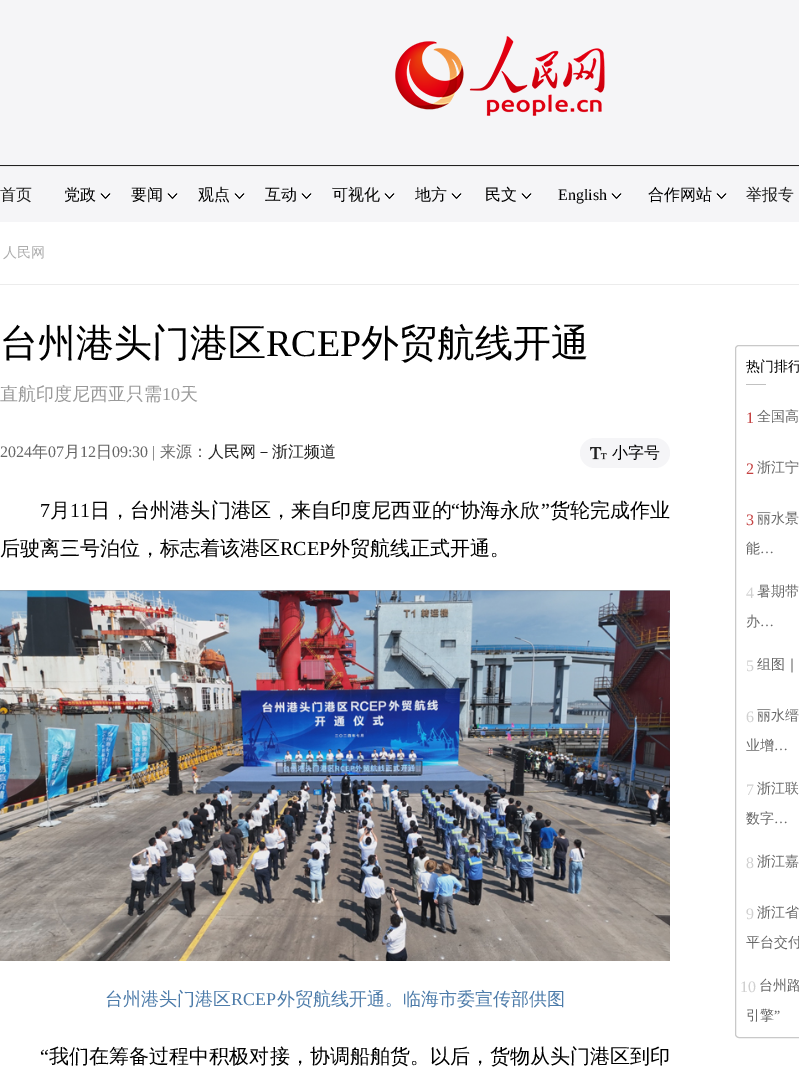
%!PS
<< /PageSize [799 1074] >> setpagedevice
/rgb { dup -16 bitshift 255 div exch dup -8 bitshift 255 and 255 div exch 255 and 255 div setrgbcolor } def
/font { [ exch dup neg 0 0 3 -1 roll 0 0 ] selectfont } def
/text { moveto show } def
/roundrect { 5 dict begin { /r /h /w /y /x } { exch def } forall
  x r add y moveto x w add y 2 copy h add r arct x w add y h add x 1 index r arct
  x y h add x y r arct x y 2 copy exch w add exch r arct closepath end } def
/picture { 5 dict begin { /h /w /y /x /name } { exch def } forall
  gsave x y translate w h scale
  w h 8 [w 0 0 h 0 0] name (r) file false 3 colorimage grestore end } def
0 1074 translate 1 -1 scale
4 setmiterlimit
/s1 { /WenQuanYiZenHei-Medium 16 font 16#212121 rgb } def
/s2 { /WenQuanYiZenHei-Medium 16 font 16#000000 rgb } def
/s3 { /LiberationSerif-Regular 16 font 16#000000 rgb } def
/s4 { /WenQuanYiZenHei-Medium 14 font 16#ADADAD rgb } def
/s5 { /WenQuanYiZenHei-Medium 38 font 16#000000 rgb } def
/s6 { /LiberationSerif-Regular 38 font 16#000000 rgb } def
/s7 { /WenQuanYiZenHei-Medium 18 font 16#999999 rgb } def
/s8 { /LiberationSerif-Regular 18 font 16#999999 rgb } def
/s9 { /LiberationSerif-Regular 16 font 16#666666 rgb } def
/s10 { /WenQuanYiZenHei-Medium 16 font 16#666666 rgb } def
/s11 { /WenQuanYiZenHei-Medium 20 font 16#000000 rgb } def
/s12 { /LiberationSerif-Regular 20 font 16#000000 rgb } def
/s13 { /WenQuanYiZenHei-Medium 18 font 16#4D7CAA rgb } def
/s14 { /LiberationSerif-Regular 18 font 16#4D7CAA rgb } def
/s15 { /WenQuanYiZenHei-Medium 14 font 16#000000 rgb } def
/s16 { /LiberationSerif-Regular 16 font 16#C54242 rgb } def
/s17 { /WenQuanYiZenHei-Medium 14 font 16#666666 rgb } def
/s18 { /LiberationSerif-Regular 14 font 16#666666 rgb } def
/s19 { /LiberationSerif-Regular 16 font 16#D0D0D0 rgb } def
16#FFFFFF rgb
0 0 799 1074 rectfill
16#F5F5F7 rgb
0 0 799 165 rectfill
16#212121 rgb
0 165 799 1 rectfill
(pic1.raw) 395 36 210 80 picture
16#E9E9E9 rgb
0 166 799 1 rectfill
16#F5F5F7 rgb
0 167 799 55 rectfill
s1
(首页) 0 200 text
s2
(党政) 64 200 text
(pic2.raw) 100 193 11 6 picture
(要闻) 131 200 text
(pic2.raw) 167 193 11 6 picture
(观点) 198 200 text
(pic2.raw) 234 193 11 6 picture
(互动) 265 200 text
(pic2.raw) 301 193 11 6 picture
(可视化) 332 200 text
(pic2.raw) 384 193 11 6 picture
(地方) 415 200 text
(pic2.raw) 451 193 11 6 picture
(民文) 485 200 text
(pic2.raw) 521 193 11 6 picture
s3
(English) 558 200 text
(pic2.raw) 611 193 11 6 picture
s2
(合作网站) 648 200 text
(pic2.raw) 716 193 11 6 picture
s1
(举报专) 746 200 text
16#ECECEC rgb
0 284 799 1 rectfill
s4
(人民网) 3 257 text
s5
(台州港头门港区) 0 356 text
s6
(RCEP) 266 356 text
s5
(外贸航线开通) 361 356 text
s7
(直航印度尼西亚只需) 0 400 text
s8
(10) 162 400 text
s7
(天) 180 400 text
s9
(2024) 0 457 text
s10
(年) 32 457 text
s9
(07) 48 457 text
s10
(月) 64 457 text
s9
(12) 80 457 text
s10
(日) 96 457 text
s9
(09:30 |) 112 457 text
s10
(来源：) 160 457 text
s1
(人民网－浙江频道) 208 457 text
16#F5F5F7 rgb
580 438 90 30 15 roundrect fill
(pic3.raw) 590 447 17 13 picture
s2
(小字号) 612 458 text
/LiberationSerif-Regular 20 font
40 517 moveto 0.1 0 (7) ashow
/WenQuanYiZenHei-Medium 20 font
50 517 moveto 0.1 0 (月) ashow
/LiberationSerif-Regular 20 font
70 517 moveto 0.1 0 (11) ashow
/WenQuanYiZenHei-Medium 20 font
90 517 moveto 0.1 0 (日，台州港头门港区，来自印度尼西亚的) ashow
/LiberationSerif-Regular 20 font
451 517 moveto 0.1 0 (“) ashow
/WenQuanYiZenHei-Medium 20 font
460 517 moveto 0.1 0 (协海永欣) ashow
/LiberationSerif-Regular 20 font
541 517 moveto 0.1 0 (”) ashow
/WenQuanYiZenHei-Medium 20 font
550 517 moveto 0.1 0 (货轮完成作业) ashow
(后驶离三号泊位，标志着该港区) 0 555 text
s12
(RCEP) 280 555 text
s11
(外贸航线正式开通。) 330 555 text
(pic4.raw) 0 590 670 371 picture
s13
(台州港头门港区) 105 1005 text
s14
(RCEP) 231 1005 text
s13
(外贸航线开通。临海市委宣传部供图) 277 1005 text
/LiberationSerif-Regular 20 font
16#000000 rgb
40 1063 moveto 0.05 0 (“) ashow
/WenQuanYiZenHei-Medium 20 font
49 1063 moveto 0.05 0 (我们在筹备过程中积极对接，协调船舶货。以后，货物从头门港区到印) ashow
16#C9C9C9 rgb
735.5 345.5 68 692 3.5 roundrect stroke
s15
(热门排行) 746 371 text
16#C1C1C1 rgb
746 384 20 1 rectfill
s16
(1) 746 423 text
s17
(全国高) 757 421 text
s16
(2) 746 474 text
s17
(浙江宁) 757 472 text
s16
(3) 746 525 text
s17
(丽水景) 757 523 text
(能) 746 553 text
s18
(…) 760 553 text
s19
(4) 746 598 text
/WenQuanYiZenHei-Medium 14 font
16#666666 rgb
757 596 moveto -1 0 32 (暑期带) widthshow
(办) 746 626 text
s18
(…) 760 626 text
s19
(5) 746 671 text
s17
(组图｜) 757 669 text
s19
(6) 746 722 text
s17
(丽水缙) 757 720 text
(业增) 746 750 text
s18
(…) 774 750 text
s19
(7) 746 795 text
/WenQuanYiZenHei-Medium 14 font
16#666666 rgb
757 793 moveto -1 0 32 (浙江联) widthshow
(数字) 746 823 text
s18
(…) 774 823 text
s19
(8) 746 868 text
s17
(浙江嘉) 757 866 text
s19
(9) 746 919 text
s17
(浙江省) 757 917 text
(平台交付) 746 947 text
s19
(10) 740 992 text
s17
(台州路) 759 990 text
(引擎) 746 1020 text
s18
(”) 774 1020 text
showpage
